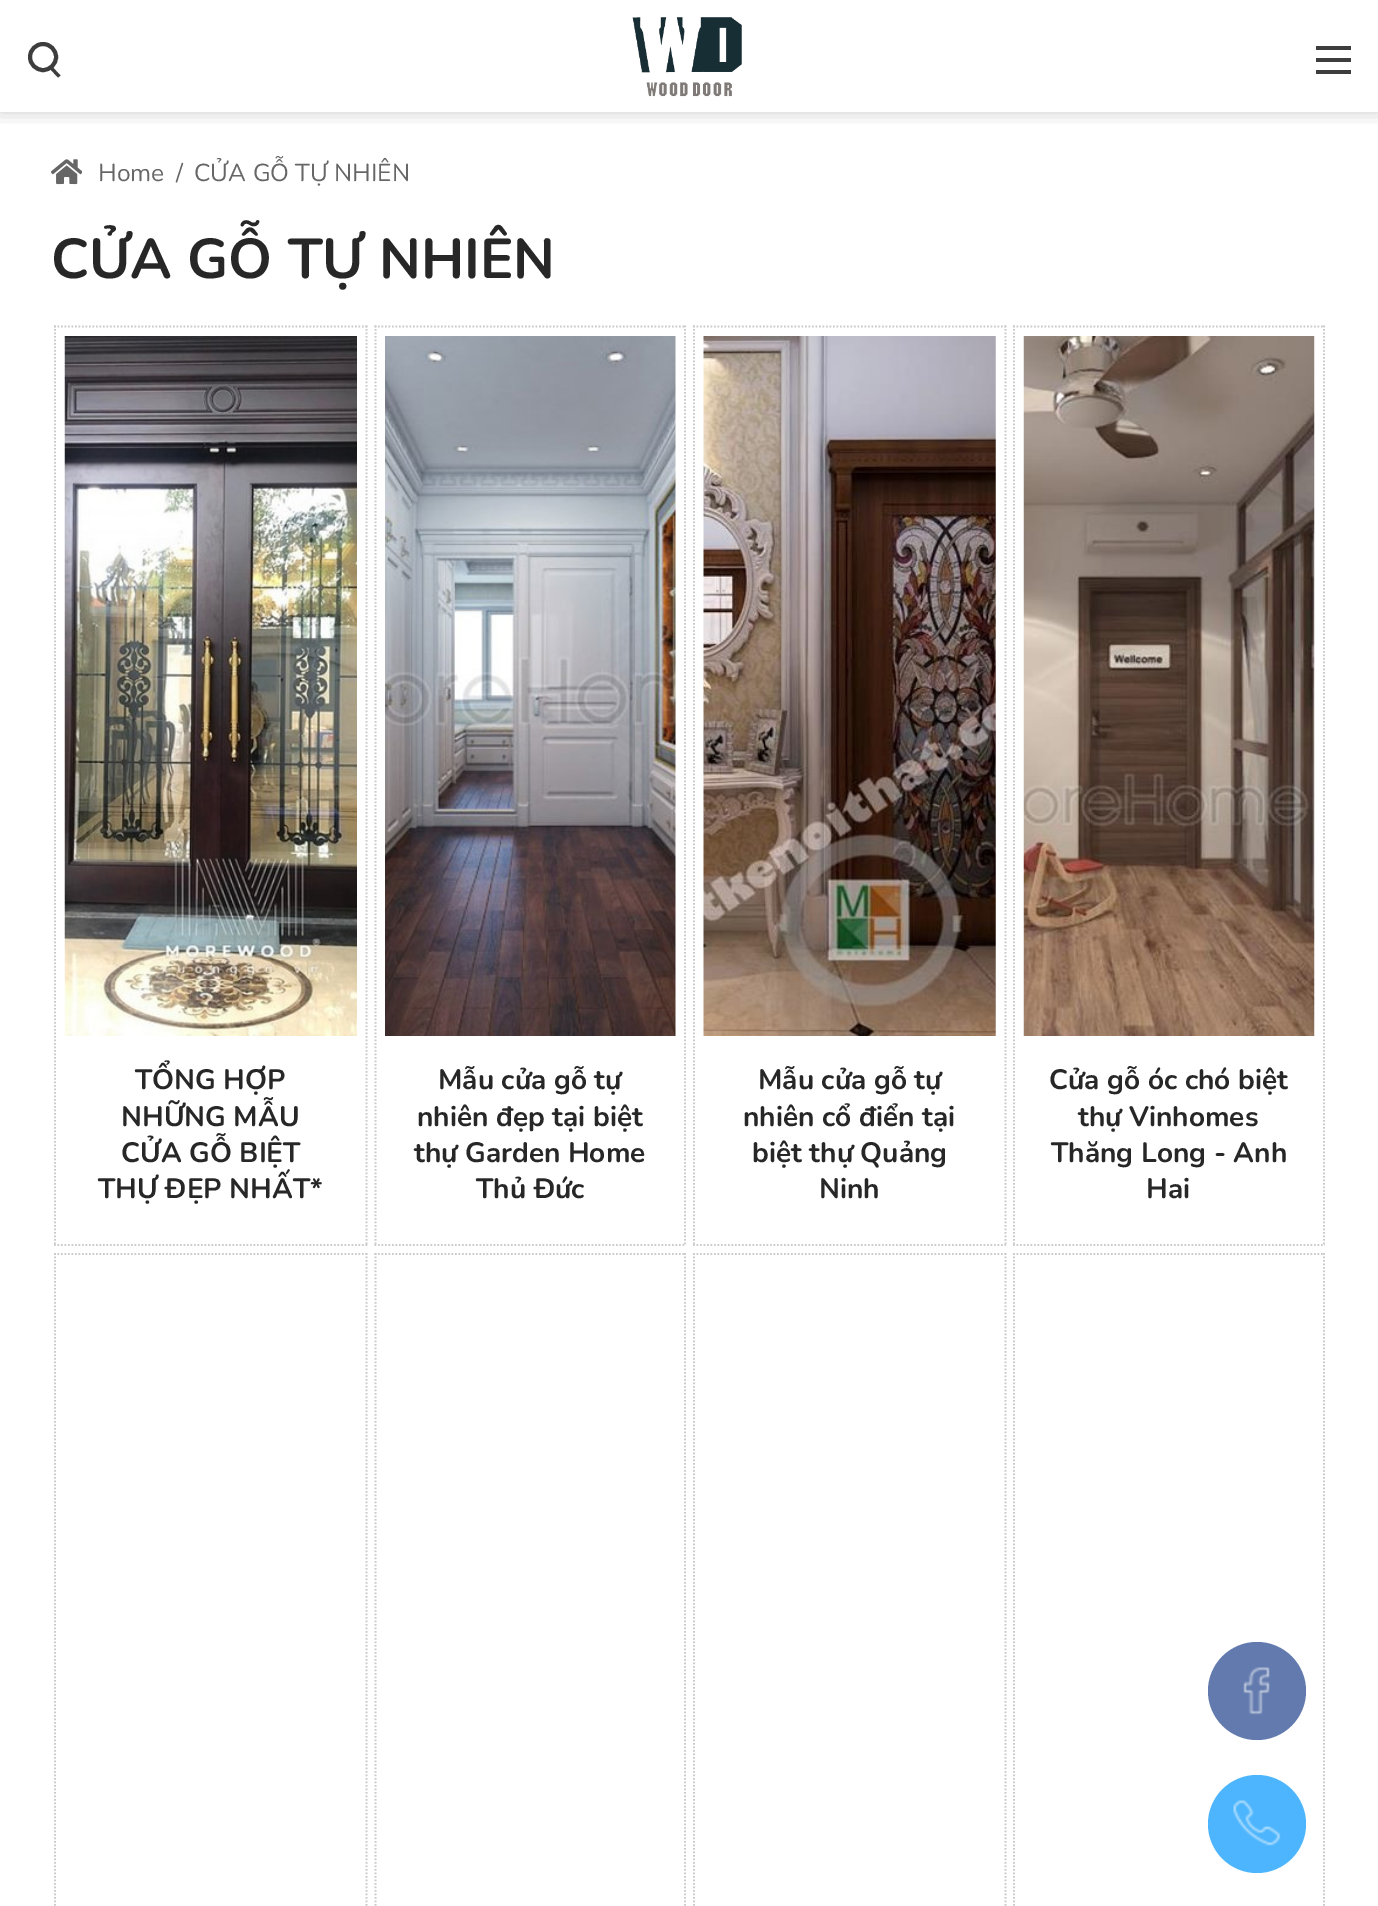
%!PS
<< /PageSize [1378 1906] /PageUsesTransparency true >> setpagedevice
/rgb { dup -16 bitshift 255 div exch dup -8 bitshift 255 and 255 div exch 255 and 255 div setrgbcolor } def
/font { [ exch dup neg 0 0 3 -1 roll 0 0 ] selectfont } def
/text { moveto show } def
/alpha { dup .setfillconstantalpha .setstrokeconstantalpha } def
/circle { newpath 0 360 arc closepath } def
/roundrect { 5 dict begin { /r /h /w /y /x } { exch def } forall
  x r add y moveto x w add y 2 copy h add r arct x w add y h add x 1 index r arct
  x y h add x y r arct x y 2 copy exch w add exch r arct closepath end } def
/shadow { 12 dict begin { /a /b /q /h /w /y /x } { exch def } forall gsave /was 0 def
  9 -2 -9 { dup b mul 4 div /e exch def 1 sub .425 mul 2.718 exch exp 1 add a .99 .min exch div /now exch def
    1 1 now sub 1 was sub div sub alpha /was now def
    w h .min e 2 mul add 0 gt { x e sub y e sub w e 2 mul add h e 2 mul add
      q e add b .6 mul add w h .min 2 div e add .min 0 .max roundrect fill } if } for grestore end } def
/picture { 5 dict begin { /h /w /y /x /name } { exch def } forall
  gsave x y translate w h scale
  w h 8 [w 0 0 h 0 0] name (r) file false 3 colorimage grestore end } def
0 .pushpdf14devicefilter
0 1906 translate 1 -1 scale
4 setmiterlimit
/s1 { /Nunito-Regular 24.5 font 16#666666 rgb } def
/s2 { /Nunito-Bold 56 font 16#272727 rgb } def
/s3 { /Nunito-Bold 28 font 16#272727 rgb } def
16#FFFFFF rgb
0 0 1378 1906 rectfill
gsave
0 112 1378 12 rectclip
16#000000 rgb
0 0 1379 112 0 9 0.2 shadow
grestore
16#3D3D3D rgb
52 66.5 moveto 60.5 75.5 lineto 58 77.5 lineto 49.5 68.5 lineto closepath fill
4 setlinewidth
43 57 13 circle stroke
(pic1.raw) 632 17 110 80 picture
1316 46 35 4 rectfill
1316 58 35 4 rectfill
1316 70 35 4 rectfill
(pic2.raw) 51 159 31 26 picture
s1
(Home) 98 181 text
(/) 176 181 text
(CỬA GỖ TỰ NHIÊN) 194 181 text
s2
(CỬA GỖ TỰ NHIÊN) 51 278 text
16#CCCACA rgb
1.8 setlinewidth
[1.75 1.75] 0 setdash
54 326.5 moveto 367.5 326.5 lineto stroke
366.5 325.5 moveto 366.5 1246 lineto stroke
54 1245 moveto 367.5 1245 lineto stroke
55 325.5 moveto 55 1246 lineto stroke
(pic3.raw) 64 336 293 700 picture
s3
(TỔNG HỢP) 135 1089 text
(NHỮNG MẪU) 121 1126 text
(CỬA GỖ BIỆT) 121 1162 text
(THỰ ĐẸP NHẤT*) 98 1198 text
16#CCCACA rgb
374.5 326.5 moveto 686 326.5 lineto stroke
685 325.5 moveto 685 1246 lineto stroke
374.5 1245 moveto 686 1245 lineto stroke
375.5 325.5 moveto 375.5 1246 lineto stroke
(pic4.raw) 385 336 291 700 picture
s3
(Mẫu cửa gỗ tự) 438 1089 text
(nhiên đẹp tại biệt) 417 1126 text
(thự Garden Home) 414 1162 text
(Thủ Đức) 476 1198 text
16#CCCACA rgb
693 326.5 moveto 1006 326.5 lineto stroke
1005.5 325.5 moveto 1005.5 1246 lineto stroke
693 1245 moveto 1006 1245 lineto stroke
694 325.5 moveto 694 1246 lineto stroke
(pic5.raw) 703 336 293 700 picture
s3
(Mẫu cửa gỗ tự) 758 1089 text
(nhiên cổ điển tại) 743 1126 text
(biệt thự Quảng) 752 1162 text
(Ninh) 819 1198 text
16#CCCACA rgb
1013 326.5 moveto 1325 326.5 lineto stroke
1324 325.5 moveto 1324 1246 lineto stroke
1013 1245 moveto 1325 1245 lineto stroke
1014 325.5 moveto 1014 1246 lineto stroke
(pic6.raw) 1023 336 292 700 picture
s3
(Cửa gỗ óc chó biệt) 1049 1089 text
(thự Vinhomes) 1078 1126 text
(Thăng Long - Anh) 1051 1162 text
(Hai) 1146 1198 text
16#CCCACA rgb
54 1254 moveto 367.5 1254 lineto stroke
366.5 1253 moveto 366.5 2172 lineto stroke
55 1253 moveto 55 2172 lineto stroke
374.5 1254 moveto 686 1254 lineto stroke
685 1253 moveto 685 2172 lineto stroke
375.5 1253 moveto 375.5 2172 lineto stroke
693 1254 moveto 1006 1254 lineto stroke
1005.5 1253 moveto 1005.5 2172 lineto stroke
694 1253 moveto 694 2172 lineto stroke
1013 1254 moveto 1325 1254 lineto stroke
1324 1253 moveto 1324 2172 lineto stroke
1014 1253 moveto 1014 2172 lineto stroke
16#627AAD rgb
1257 1691 49 circle fill
(pic7.raw) 1243 1667 27 48 picture
16#4DB5FD rgb
1257 1824 49 circle fill
(pic8.raw) 1233 1800 48 46 picture
.poppdf14devicefilter showpage
